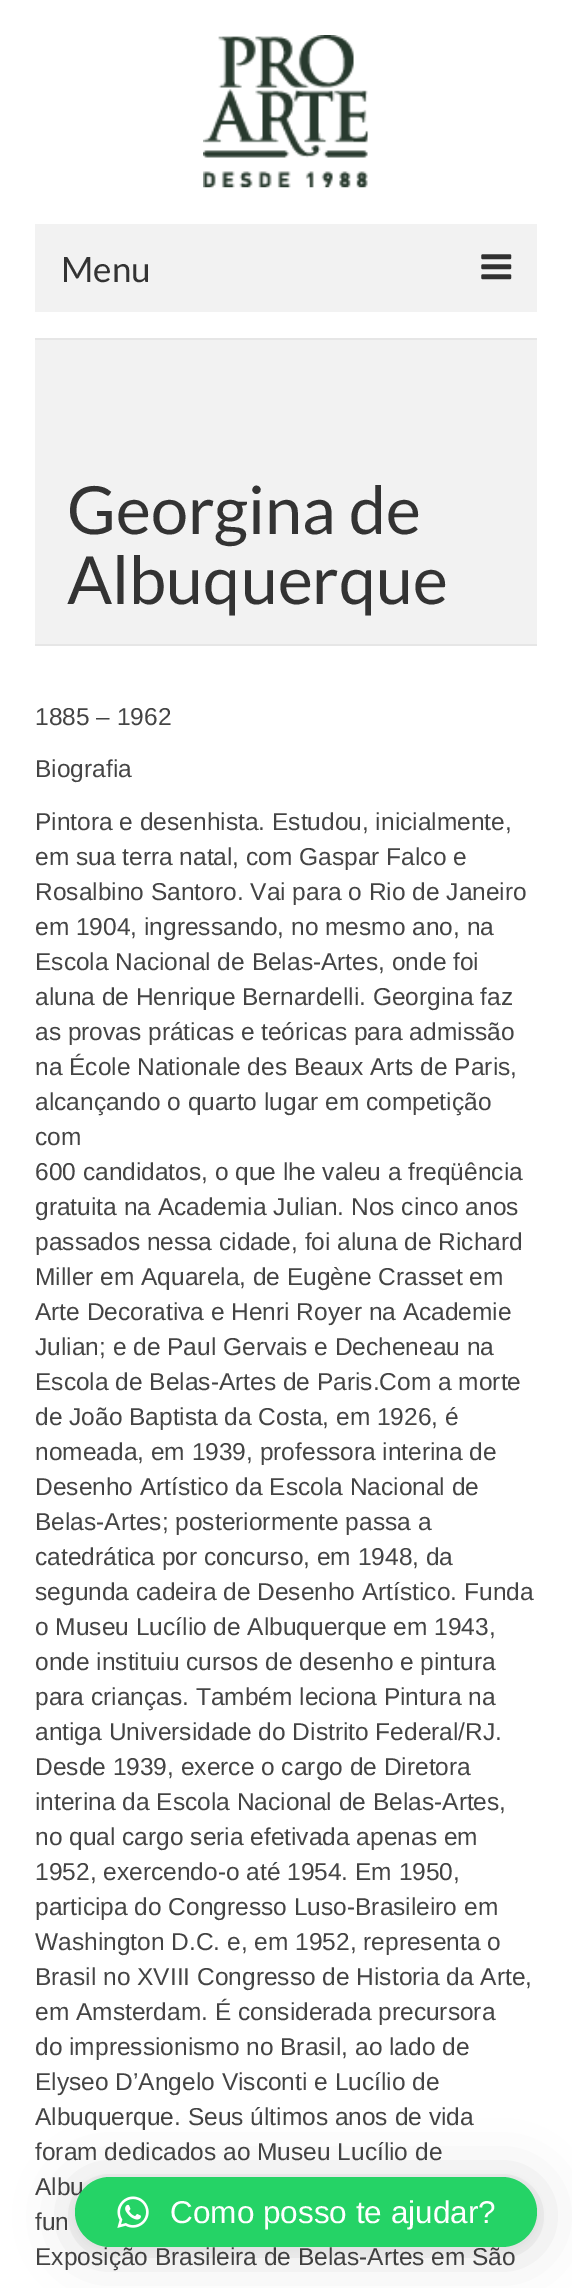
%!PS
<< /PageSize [572 2288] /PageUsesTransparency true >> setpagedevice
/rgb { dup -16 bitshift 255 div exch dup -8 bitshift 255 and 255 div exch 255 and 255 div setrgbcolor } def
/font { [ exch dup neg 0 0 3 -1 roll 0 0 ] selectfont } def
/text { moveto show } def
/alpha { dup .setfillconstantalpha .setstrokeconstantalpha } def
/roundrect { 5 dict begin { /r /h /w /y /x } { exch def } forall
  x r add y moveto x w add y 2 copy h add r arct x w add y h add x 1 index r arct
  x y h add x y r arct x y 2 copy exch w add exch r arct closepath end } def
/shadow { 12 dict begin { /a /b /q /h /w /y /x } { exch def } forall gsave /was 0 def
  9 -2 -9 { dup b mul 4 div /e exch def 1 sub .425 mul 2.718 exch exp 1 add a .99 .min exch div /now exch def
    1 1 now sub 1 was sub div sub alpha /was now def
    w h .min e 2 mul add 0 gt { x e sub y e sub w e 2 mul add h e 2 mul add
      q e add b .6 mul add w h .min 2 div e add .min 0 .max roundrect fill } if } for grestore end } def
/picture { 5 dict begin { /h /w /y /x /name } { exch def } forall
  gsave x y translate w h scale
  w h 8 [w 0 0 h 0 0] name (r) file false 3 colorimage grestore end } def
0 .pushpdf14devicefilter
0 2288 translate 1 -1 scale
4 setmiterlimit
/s1 { /Lato-Regular 35 font 16#333333 rgb } def
/s2 { /Lato-Regular 66.5 font 16#333333 rgb } def
/s3 { /LiberationSans-Regular 24.5 font 16#444444 rgb } def
/s4 { /LiberationSans-Regular 31.5 font 16#FFFFFF rgb } def
16#FFFFFF rgb
0 0 572 2288 rectfill
(pic1.raw) 203 35 166 153 picture
16#F2F2F2 rgb
35 224 502 88 rectfill
s1
(Menu) 61 282 text
(pic2.raw) 481 254 31 26 picture
16#F2F2F2 rgb
35 340 502 304 rectfill
16#E6E6E6 rgb
35 338 502 2 rectfill
35 644 502 2 rectfill
s2
(Georgina de) 67 534 text
(Albuquerque) 67 604 text
s3
(1885 – 1962) 35 725 text
(Biografia) 35 777 text
(Pintora e desenhista. Estudou, inicialmente,) 35 830 text
(em sua terra natal, com Gaspar Falco e) 35 865 text
(Rosalbino Santoro. Vai para o Rio de Janeiro) 35 900 text
(em 1904, ingressando, no mesmo ano, na) 35 935 text
(Escola Nacional de Belas-Artes, onde foi) 35 970 text
(aluna de Henrique Bernardelli. Georgina faz) 35 1005 text
(as provas práticas e teóricas para admissão) 35 1040 text
(na École Nationale des Beaux Arts de Paris,) 35 1075 text
(alcançando o quarto lugar em competição) 35 1110 text
(com) 35 1145 text
(600 candidatos, o que lhe valeu a freqüência) 35 1180 text
(gratuita na Academia Julian. Nos cinco anos) 35 1215 text
(passados nessa cidade, foi aluna de Richard) 35 1250 text
(Miller em Aquarela, de Eugène Crasset em) 35 1285 text
(Arte Decorativa e Henri Royer na Academie) 35 1320 text
(Julian; e de Paul Gervais e Decheneau na) 35 1355 text
(Escola de Belas-Artes de Paris.Com a morte) 35 1390 text
(de João Baptista da Costa, em 1926, é) 35 1425 text
(nomeada, em 1939, professora interina de) 35 1460 text
(Desenho Artístico da Escola Nacional de) 35 1495 text
(Belas-Artes; posteriormente passa a) 35 1530 text
(catedrática por concurso, em 1948, da) 35 1565 text
(segunda cadeira de Desenho Artístico. Funda) 35 1600 text
(o Museu Lucílio de Albuquerque em 1943,) 35 1635 text
(onde instituiu cursos de desenho e pintura) 35 1670 text
(para crianças. Também leciona Pintura na) 35 1705 text
(antiga Universidade do Distrito Federal/RJ.) 35 1740 text
(Desde 1939, exerce o cargo de Diretora) 35 1775 text
(interina da Escola Nacional de Belas-Artes,) 35 1810 text
(no qual cargo seria efetivada apenas em) 35 1845 text
(1952, exercendo-o até 1954. Em 1950,) 35 1880 text
(participa do Congresso Luso-Brasileiro em) 35 1915 text
(Washington D.C. e, em 1952, representa o) 35 1950 text
(Brasil no XVIII Congresso de Historia da Arte,) 35 1985 text
(em Amsterdam. É considerada precursora) 35 2020 text
(do impressionismo no Brasil, ao lado de) 35 2055 text
(Elyseo D’Angelo Visconti e Lucílio de) 35 2090 text
(Albuquerque. Seus últimos anos de vida) 35 2125 text
(foram dedicados ao Museu Lucílio de) 35 2160 text
(Albu) 35 2195 text
(fun) 35 2230 text
(Exposição Brasileira de Belas-Artes em São) 35 2265 text
16#000000 rgb
75 2181 462 70 35 28 0.16 shadow
75 2179 462 70 35 5 0.06 shadow
16#25D366 rgb
75 2177 462 70 35 roundrect fill
(pic3.raw) 117 2196 32 32 picture
s4
(Como posso te ajudar?) 170 2223 text
.poppdf14devicefilter showpage
